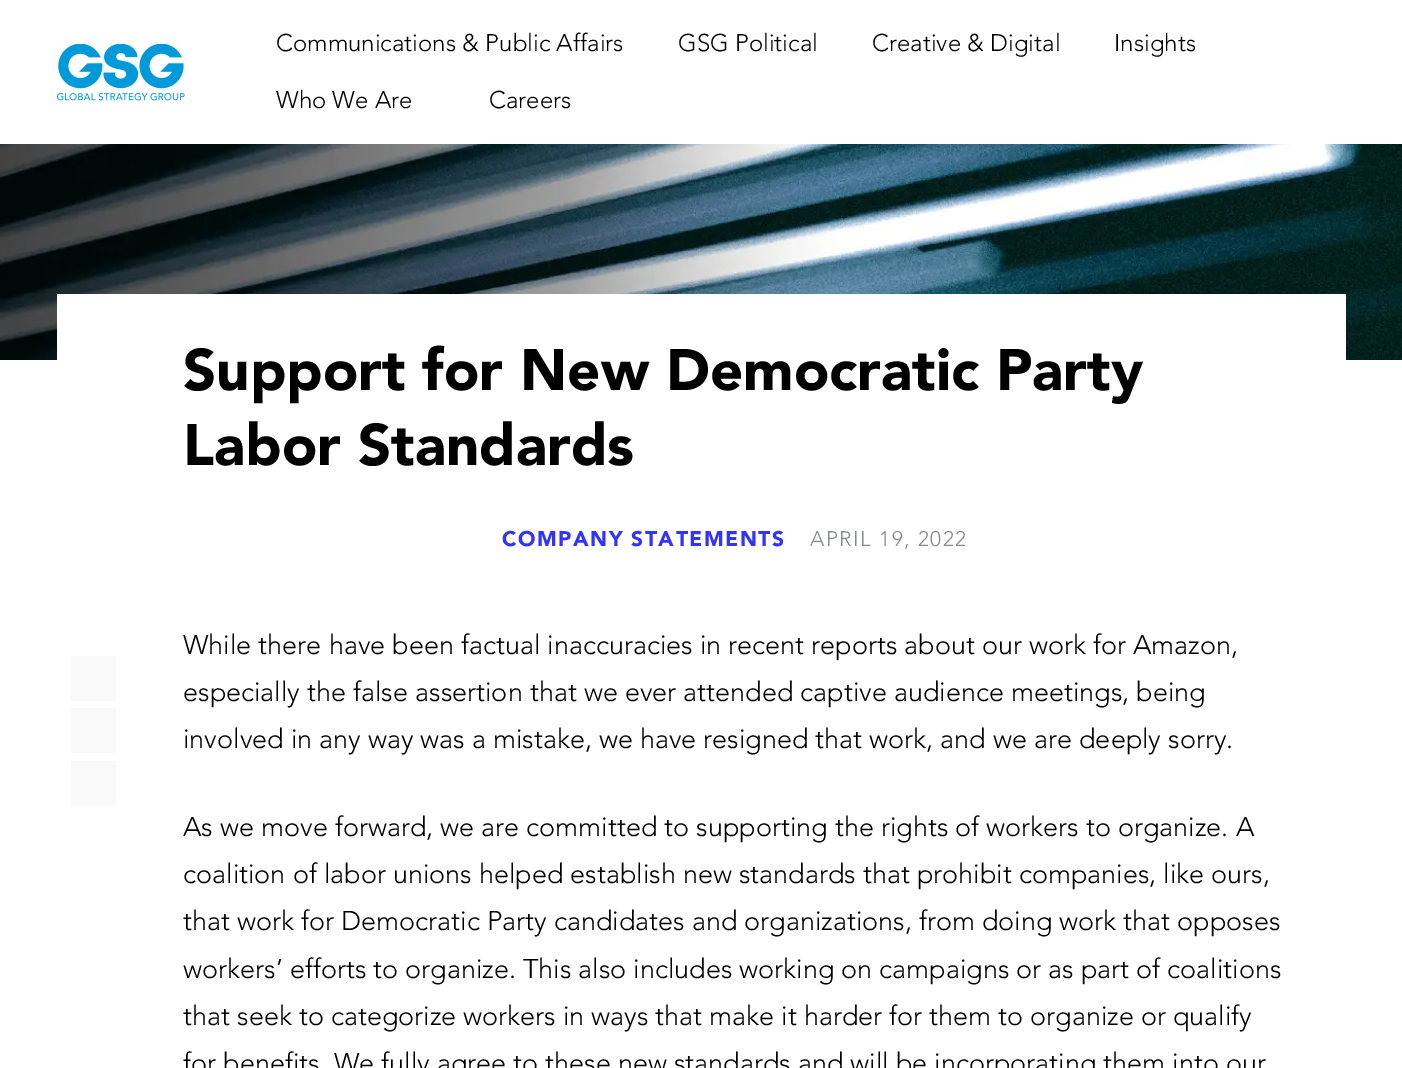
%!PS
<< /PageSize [1402 1068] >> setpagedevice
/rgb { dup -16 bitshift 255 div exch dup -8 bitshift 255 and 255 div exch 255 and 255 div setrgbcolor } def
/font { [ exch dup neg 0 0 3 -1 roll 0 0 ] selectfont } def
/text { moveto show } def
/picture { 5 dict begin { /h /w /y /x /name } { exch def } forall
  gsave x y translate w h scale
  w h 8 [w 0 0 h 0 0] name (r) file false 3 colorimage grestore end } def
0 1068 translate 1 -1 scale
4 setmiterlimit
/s1 { /Avenir-Light 24 font 16#000000 rgb } def
/s2 { /Avenir-Black 58 font 16#000000 rgb } def
/s3 { /Avenir-Light 27 font 16#000000 rgb } def
16#FFFFFF rgb
0 0 1402 1068 rectfill
(pic1.raw) 57 44 128 57 picture
s1
(Communications & Public Affairs) 276 51 text
(GSG Political) 678 51 text
(Creative & Digital) 872 51 text
(Insights) 1114 51 text
(Who We Are) 276 108 text
(Careers) 489 108 text
(pic2.raw) 0 144 1402 216 picture
16#FFFFFF rgb
57 294 1289 66 rectfill
s2
(Support for New Democratic Party) 183 390 text
(Labor Standards) 183 465 text
/Avenir-Black 21 font
16#3333FF rgb
502 546 moveto 1.5 0 (COMPANY STATEMENTS) ashow
/Avenir-Light 21 font
16#888B8D rgb
810 546 moveto 1.5 0 (APRIL 19, 2022) ashow
16#F9F9F9 rgb
71 656 45 45 rectfill
71 708 45 45 rectfill
71 761 45 45 rectfill
s3
(While there have been factual inaccuracies in recent reports about our work for Amazon,) 183 654 text
(especially the false assertion that we ever attended captive audience meetings, being) 183 701 text
(involved in any way was a mistake, we have resigned that work, and we are deeply sorry.) 183 748 text
(As we move forward, we are committed to supporting the rights of workers to organize. A) 183 836 text
(coalition of labor unions helped establish new standards that prohibit companies, like ours,) 183 883 text
(that work for Democratic Party candidates and organizations, from doing work that opposes) 183 930 text
(workers’ efforts to organize. This also includes working on campaigns or as part of coalitions) 183 978 text
(that seek to categorize workers in ways that make it harder for them to organize or qualify) 183 1025 text
(for benefits. We fully agree to these new standards and will be incorporating them into our) 183 1072 text
showpage
